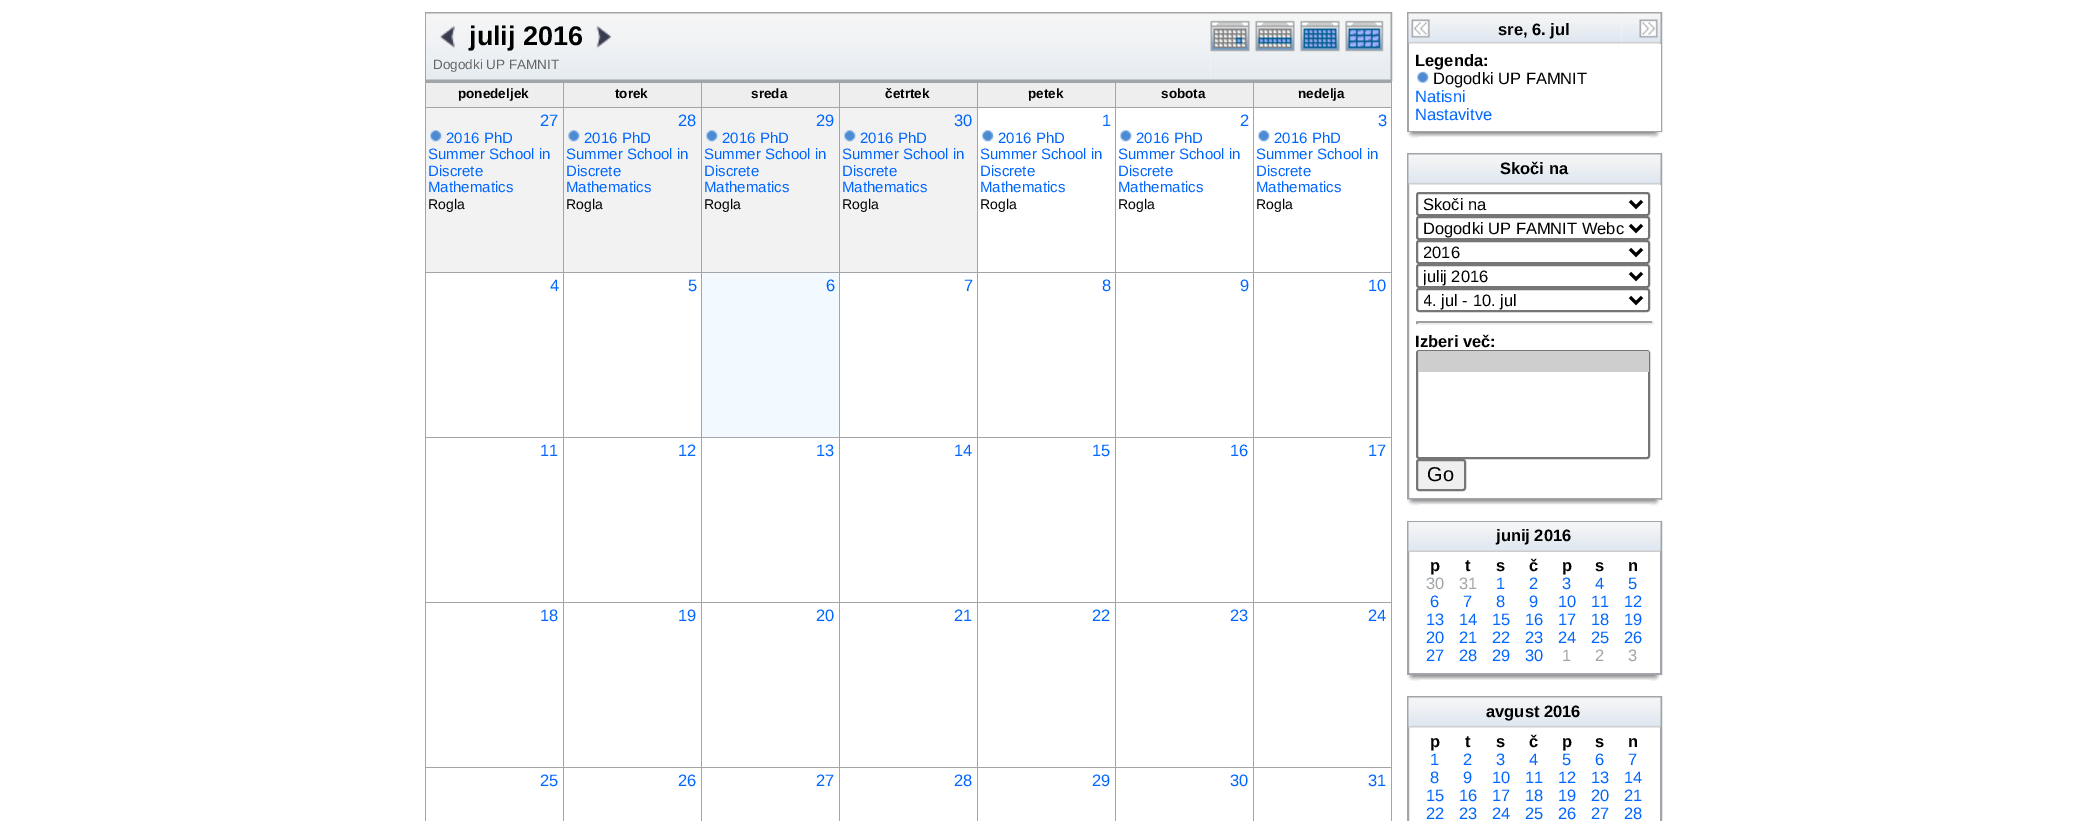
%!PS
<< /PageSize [2085 821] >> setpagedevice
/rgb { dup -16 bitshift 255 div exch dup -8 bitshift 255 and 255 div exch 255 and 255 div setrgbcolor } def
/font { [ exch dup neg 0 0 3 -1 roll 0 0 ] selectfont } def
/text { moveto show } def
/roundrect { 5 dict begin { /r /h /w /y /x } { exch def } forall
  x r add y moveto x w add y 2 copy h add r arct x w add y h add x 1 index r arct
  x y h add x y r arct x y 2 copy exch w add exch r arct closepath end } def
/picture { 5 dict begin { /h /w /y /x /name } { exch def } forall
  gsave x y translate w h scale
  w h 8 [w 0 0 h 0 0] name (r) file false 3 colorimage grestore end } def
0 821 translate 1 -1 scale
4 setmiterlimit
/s1 { /LiberationSans-Bold 27 font 16#000000 rgb } def
/s2 { /LiberationSans-Regular 13.5 font 16#666666 rgb } def
/s3 { /LiberationSans-Bold 13.5 font 16#000000 rgb } def
/s4 { /LiberationSans-Regular 16.5 font 16#0066FF rgb } def
/s5 { /LiberationSans-Regular 15 font 16#0066FF rgb } def
/s6 { /LiberationSans-Regular 14 font 16#000000 rgb } def
/s7 { /LiberationSans-Bold 16.5 font 16#000000 rgb } def
/s8 { /LiberationSans-Regular 16.5 font 16#000000 rgb } def
/s9 { /LiberationSans-Regular 20 font 16#000000 rgb } def
/s10 { /LiberationSans-Regular 16.5 font 16#A1A5A9 rgb } def
16#FFFFFF rgb
0 0 2085 821 rectfill
16#A1A5A9 rgb
2 setlinewidth
426 13 965 67 rectstroke
(pic1.raw) 426 13 785 67 picture
(pic2.raw) 439 25 16 24 picture
s1
(julij 2016) 469 45 text
(pic3.raw) 596 25 16 24 picture
s2
(Dogodki UP FAMNIT) 433 69 text
(pic4.raw) 1210 13 181 67 picture
(pic5.raw) 1210 20 40 32 picture
(pic6.raw) 1255 20 40 32 picture
(pic7.raw) 1300 20 40 32 picture
(pic8.raw) 1345 20 39 32 picture
16#A1A5A9 rgb
425 81 967 740 rectfill
16#EEEEEE rgb
426 83 137 24 rectfill
s3
(ponedeljek) 458 98 text
16#EEEEEE rgb
564 83 137 24 rectfill
s3
(torek) 615 98 text
16#EEEEEE rgb
702 83 137 24 rectfill
s3
(sreda) 751 98 text
16#EEEEEE rgb
840 83 137 24 rectfill
s3
(četrtek) 885 98 text
16#EEEEEE rgb
978 83 137 24 rectfill
s3
(petek) 1028 98 text
16#EEEEEE rgb
1116 83 137 24 rectfill
s3
(sobota) 1161 98 text
16#EEEEEE rgb
1254 83 137 24 rectfill
s3
(nedelja) 1298 98 text
16#F2F2F2 rgb
426 108 137 164 rectfill
s4
(27) 540 126 text
(pic9.raw) 430 130 12 12 picture
s5
(2016 PhD) 446 143 text
(Summer School in) 428 159 text
(Discrete) 428 176 text
(Mathematics) 428 192 text
s6
(Rogla) 428 209 text
16#F2F2F2 rgb
564 108 137 164 rectfill
s4
(28) 678 126 text
(pic9.raw) 568 130 12 12 picture
s5
(2016 PhD) 584 143 text
(Summer School in) 566 159 text
(Discrete) 566 176 text
(Mathematics) 566 192 text
s6
(Rogla) 566 209 text
16#F2F2F2 rgb
702 108 137 164 rectfill
s4
(29) 816 126 text
(pic9.raw) 706 130 12 12 picture
s5
(2016 PhD) 722 143 text
(Summer School in) 704 159 text
(Discrete) 704 176 text
(Mathematics) 704 192 text
s6
(Rogla) 704 209 text
16#F2F2F2 rgb
840 108 137 164 rectfill
s4
(30) 954 126 text
(pic10.raw) 844 130 12 12 picture
s5
(2016 PhD) 860 143 text
(Summer School in) 842 159 text
(Discrete) 842 176 text
(Mathematics) 842 192 text
s6
(Rogla) 842 209 text
16#FFFFFF rgb
978 108 137 164 rectfill
s4
(1) 1102 126 text
(pic11.raw) 982 130 12 12 picture
s5
(2016 PhD) 998 143 text
(Summer School in) 980 159 text
(Discrete) 980 176 text
(Mathematics) 980 192 text
s6
(Rogla) 980 209 text
16#FFFFFF rgb
1116 108 137 164 rectfill
s4
(2) 1240 126 text
(pic12.raw) 1120 130 12 12 picture
s5
(2016 PhD) 1136 143 text
(Summer School in) 1118 159 text
(Discrete) 1118 176 text
(Mathematics) 1118 192 text
s6
(Rogla) 1118 209 text
16#FFFFFF rgb
1254 108 137 164 rectfill
s4
(3) 1378 126 text
(pic12.raw) 1258 130 12 12 picture
s5
(2016 PhD) 1274 143 text
(Summer School in) 1256 159 text
(Discrete) 1256 176 text
(Mathematics) 1256 192 text
s6
(Rogla) 1256 209 text
16#FFFFFF rgb
426 273 137 164 rectfill
s4
(4) 550 291 text
16#FFFFFF rgb
564 273 137 164 rectfill
s4
(5) 688 291 text
16#F2F9FF rgb
702 273 137 164 rectfill
s4
(6) 826 291 text
16#FFFFFF rgb
840 273 137 164 rectfill
s4
(7) 964 291 text
16#FFFFFF rgb
978 273 137 164 rectfill
s4
(8) 1102 291 text
16#FFFFFF rgb
1116 273 137 164 rectfill
s4
(9) 1240 291 text
16#FFFFFF rgb
1254 273 137 164 rectfill
s4
(10) 1368 291 text
16#FFFFFF rgb
426 438 137 164 rectfill
s4
(11) 540 456 text
16#FFFFFF rgb
564 438 137 164 rectfill
s4
(12) 678 456 text
16#FFFFFF rgb
702 438 137 164 rectfill
s4
(13) 816 456 text
16#FFFFFF rgb
840 438 137 164 rectfill
s4
(14) 954 456 text
16#FFFFFF rgb
978 438 137 164 rectfill
s4
(15) 1092 456 text
16#FFFFFF rgb
1116 438 137 164 rectfill
s4
(16) 1230 456 text
16#FFFFFF rgb
1254 438 137 164 rectfill
s4
(17) 1368 456 text
16#FFFFFF rgb
426 603 137 164 rectfill
s4
(18) 540 621 text
16#FFFFFF rgb
564 603 137 164 rectfill
s4
(19) 678 621 text
16#FFFFFF rgb
702 603 137 164 rectfill
s4
(20) 816 621 text
16#FFFFFF rgb
840 603 137 164 rectfill
s4
(21) 954 621 text
16#FFFFFF rgb
978 603 137 164 rectfill
s4
(22) 1092 621 text
16#FFFFFF rgb
1116 603 137 164 rectfill
s4
(23) 1230 621 text
16#FFFFFF rgb
1254 603 137 164 rectfill
s4
(24) 1368 621 text
16#FFFFFF rgb
426 768 137 53 rectfill
s4
(25) 540 786 text
16#FFFFFF rgb
564 768 137 53 rectfill
s4
(26) 678 786 text
16#FFFFFF rgb
702 768 137 53 rectfill
s4
(27) 816 786 text
16#FFFFFF rgb
840 768 137 53 rectfill
s4
(28) 954 786 text
16#FFFFFF rgb
978 768 137 53 rectfill
s4
(29) 1092 786 text
16#FFFFFF rgb
1116 768 137 53 rectfill
s4
(30) 1230 786 text
16#FFFFFF rgb
1254 768 137 53 rectfill
s4
(31) 1368 786 text
16#A1A5A9 rgb
1408 13 253 118 rectstroke
(pic13.raw) 1408 13 38 31 picture
(pic14.raw) 1411 19 19 19 picture
(pic15.raw) 1446 13 176 31 picture
s7
(sre, 6. jul) 1498 35 text
(pic16.raw) 1621 13 40 31 picture
(pic17.raw) 1639 19 19 19 picture
16#FFFFFF rgb
1409 44 252 87 rectfill
s7
(Legenda:) 1415 66 text
(pic18.raw) 1417 71 12 12 picture
s8
(Dogodki UP FAMNIT) 1433 84 text
s4
(Natisni) 1415 102 text
(Nastavitve) 1415 120 text
(pic19.raw) 1407 132 12 6 picture
(pic20.raw) 1419 132 231 5 picture
(pic21.raw) 1650 132 11 6 picture
16#A1A5A9 rgb
1408 154 253 345 rectstroke
(pic22.raw) 1408 154 253 31 picture
s7
(Skoči na) 1500 174 text
16#FFFFFF rgb
1660 185 1 313 rectfill
16#767676 rgb
1417 193 232 22 2 roundrect stroke
16#000000 rgb
3 setlinewidth
1630 201 moveto 1636 207 lineto 1642 201 lineto stroke
s8
(Skoči na) 1423 210 text
16#767676 rgb
2 setlinewidth
1417 217 232 22 2 roundrect stroke
16#000000 rgb
3 setlinewidth
1630 225 moveto 1636 231 lineto 1642 225 lineto stroke
(Dogodki UP FAMNIT Webc) 1423 234 text
16#767676 rgb
2 setlinewidth
1417 241 232 22 2 roundrect stroke
16#000000 rgb
3 setlinewidth
1630 249 moveto 1636 255 lineto 1642 249 lineto stroke
gsave
1424 242 201 21 rectclip
(2016) 1423 258 text
grestore
16#767676 rgb
2 setlinewidth
1417 265 232 22 2 roundrect stroke
16#000000 rgb
3 setlinewidth
1630 273 moveto 1636 279 lineto 1642 273 lineto stroke
gsave
1424 266 201 21 rectclip
(julij 2016) 1423 282 text
grestore
16#767676 rgb
2 setlinewidth
1417 289 232 22 2 roundrect stroke
16#000000 rgb
3 setlinewidth
1630 297 moveto 1636 303 lineto 1642 297 lineto stroke
gsave
1424 290 201 21 rectclip
(4. jul - 10. jul) 1423 306 text
grestore
16#9F9F9F rgb
1416 321 237 2 rectfill
16#EEEEEE rgb
1652 321 2 3 rectfill
1416 323 237 2 rectfill
16#9F9F9F rgb
1416 321 2 3 rectfill
s7
(Izberi več:) 1415 347 text
16#767676 rgb
2 setlinewidth
1417 351 232 107 2 roundrect stroke
16#CECECE rgb
1419.5 351 moveto 1647.5 351 lineto 1648.5 351 1649 351.5 1649 352.5 curveto 1649 372 lineto 1418 372 lineto 1418 352.5 lineto 1418 351.5 1418.5 351 1419.5 351 curveto closepath fill
16#EFEFEF rgb
1417 460 48 30 2 roundrect gsave fill grestore
16#767676 rgb
stroke
s9
(Go) 1427 481 text
(pic23.raw) 1407 499 12 7 picture
(pic24.raw) 1419 499 231 6 picture
(pic25.raw) 1650 499 11 7 picture
16#A1A5A9 rgb
1408 522 253 152 rectstroke
(pic26.raw) 1408 522 253 30 picture
s7
(junij 2016) 1496 541 text
(p) 1430 571 text
(t) 1465 571 text
(s) 1496 571 text
(č) 1529 571 text
(p) 1562 571 text
(s) 1595 571 text
(n) 1628 571 text
s10
(30) 1426 589 text
(31) 1459 589 text
s4
(1) 1496 589 text
(2) 1529 589 text
(3) 1562 589 text
(4) 1595 589 text
(5) 1628 589 text
(6) 1430 607 text
(7) 1463 607 text
(8) 1496 607 text
(9) 1529 607 text
(10) 1558 607 text
(11) 1591 607 text
(12) 1624 607 text
(13) 1426 625 text
(14) 1459 625 text
(15) 1492 625 text
(16) 1525 625 text
(17) 1558 625 text
(18) 1591 625 text
(19) 1624 625 text
(20) 1426 643 text
(21) 1459 643 text
(22) 1492 643 text
(23) 1525 643 text
(24) 1558 643 text
(25) 1591 643 text
(26) 1624 643 text
(27) 1426 661 text
(28) 1459 661 text
(29) 1492 661 text
(30) 1525 661 text
s10
(1) 1562 661 text
(2) 1595 661 text
(3) 1628 661 text
(pic19.raw) 1407 675 12 6 picture
(pic20.raw) 1419 675 231 5 picture
(pic21.raw) 1650 675 11 6 picture
1408 697 253 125 rectstroke
(pic27.raw) 1408 697 253 31 picture
s7
(avgust 2016) 1486 717 text
(p) 1430 747 text
(t) 1465 747 text
(s) 1496 747 text
(č) 1529 747 text
(p) 1562 747 text
(s) 1595 747 text
(n) 1628 747 text
s4
(1) 1430 765 text
(2) 1463 765 text
(3) 1496 765 text
(4) 1529 765 text
(5) 1562 765 text
(6) 1595 765 text
(7) 1628 765 text
(8) 1430 783 text
(9) 1463 783 text
(10) 1492 783 text
(11) 1525 783 text
(12) 1558 783 text
(13) 1591 783 text
(14) 1624 783 text
(15) 1426 801 text
(16) 1459 801 text
(17) 1492 801 text
(18) 1525 801 text
(19) 1558 801 text
(20) 1591 801 text
(21) 1624 801 text
(22) 1426 819 text
(23) 1459 819 text
(24) 1492 819 text
(25) 1525 819 text
(26) 1558 819 text
(27) 1591 819 text
(28) 1624 819 text
showpage
